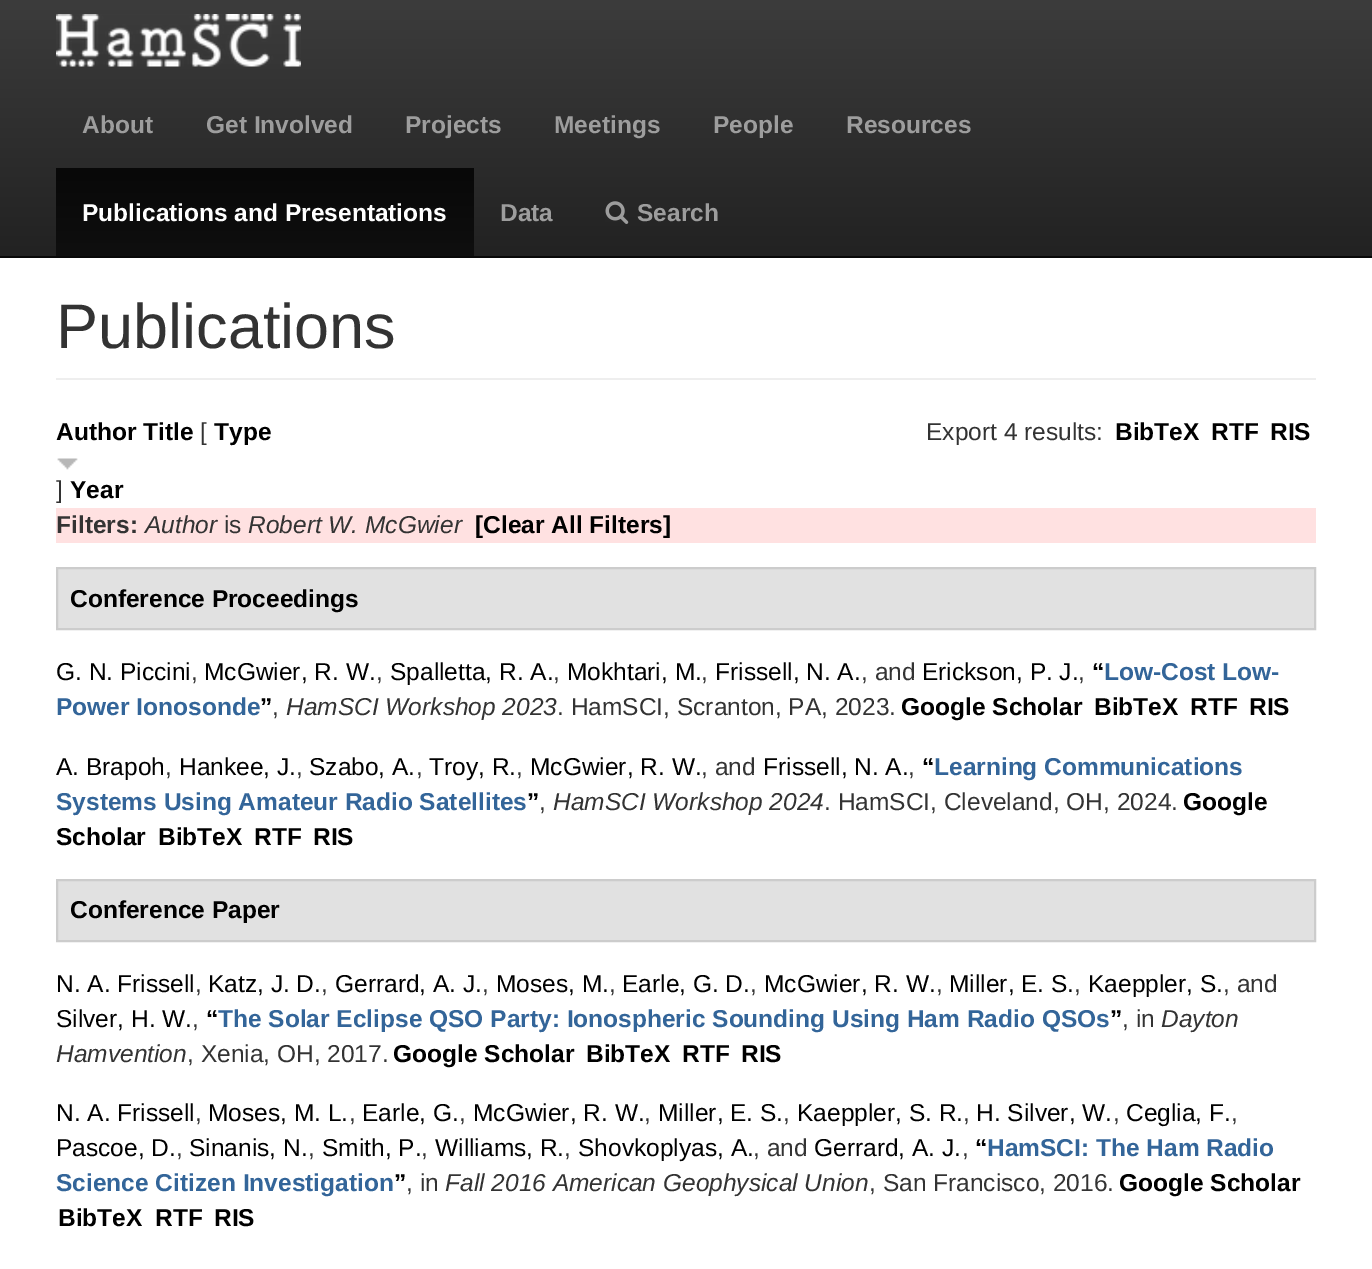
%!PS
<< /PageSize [1372 1269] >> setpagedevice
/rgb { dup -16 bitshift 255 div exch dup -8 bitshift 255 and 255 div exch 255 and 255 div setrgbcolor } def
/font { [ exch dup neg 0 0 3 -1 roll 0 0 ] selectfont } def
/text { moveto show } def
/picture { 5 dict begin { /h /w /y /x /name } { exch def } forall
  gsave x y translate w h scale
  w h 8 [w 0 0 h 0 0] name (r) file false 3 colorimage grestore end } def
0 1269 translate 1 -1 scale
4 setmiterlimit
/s1 { /LiberationSans-Bold 24.5 font 16#9D9D9D rgb } def
/s2 { /LiberationSans-Bold 24.5 font 16#FFFFFF rgb } def
/s3 { /LiberationSans-Regular 63 font 16#333333 rgb } def
/s4 { /LiberationSans-Bold 24.5 font 16#000000 rgb } def
/s5 { /LiberationSans-Regular 24.5 font 16#333333 rgb } def
/s6 { /LiberationSans-Bold 24.5 font 16#333333 rgb } def
/s7 { /LiberationSans-Italic 24.5 font 16#333333 rgb } def
/s8 { /LiberationSans-Regular 24.5 font 16#000000 rgb } def
/s9 { /LiberationSans-Bold 24.5 font 16#336599 rgb } def
16#FFFFFF rgb
0 0 1372 1269 rectfill
gsave 0 0 moveto 1372 0 lineto 1372 256 lineto 0 256 lineto closepath clip newpath
<< /ShadingType 2 /ColorSpace /DeviceRGB /Coords [686 0 686 256] /Extend [true true] /Function << /FunctionType 2 /Domain [0 1] /C0 [0.235 0.235 0.235] /C1 [0.133 0.133 0.133] /N 1 >> >> shfill grestore
16#080808 rgb
0 256 1372 2 rectfill
(pic1.raw) 56 14 245 53 picture
s1
(About) 82 133 text
(Get Involved) 206 133 text
(Projects) 405 133 text
(Meetings) 554 133 text
(People) 713 133 text
(Resources) 846 133 text
gsave 56 168 moveto 474 168 lineto 474 256 lineto 56 256 lineto closepath clip newpath
<< /ShadingType 2 /ColorSpace /DeviceRGB /Coords [265 168 265 256] /Extend [true true] /Function << /FunctionType 2 /Domain [0 1] /C0 [0.031 0.031 0.031] /C1 [0.059 0.059 0.059] /N 1 >> >> shfill grestore
s2
(Publications and Presentations) 82 221 text
s1
(Data) 500 221 text
(pic2.raw) 605 201 24 23 picture
(Search) 637 221 text
16#EEEEEE rgb
56 378 1260 2 rectfill
s3
(Publications) 56 348 text
s4
(Author Title) 56 440 text
s5
([) 200 440 text
s4
(Type) 214 440 text
s5
(Export 4 results:) 926 440 text
s4
(BibTeX) 1115 440 text
(RTF) 1211 440 text
(RIS) 1270 440 text
(pic3.raw) 57 458 21 12 picture
s5
(]) 56 498 text
s4
(Year) 70 498 text
16#FFE1E1 rgb
56 508 1260 35 rectfill
s6
(Filters:) 56 533 text
s7
(Author) 145 533 text
s5
(is) 224 533 text
s7
(Robert W. McGwier) 248 533 text
s4
([Clear All Filters]) 475 533 text
16#E1E1E1 rgb
57 568 moveto 1315 568 lineto 1315 629 lineto 57 629 lineto closepath gsave fill grestore
16#CCCCCC rgb
2 setlinewidth
stroke
s4
(Conference Proceedings) 70 607 text
s8
(G. N. Piccini) 56 680 text
(McGwier, R. W.) 204 680 text
(Spalletta, R. A.) 390 680 text
(Mokhtari, M.) 567 680 text
(Frissell, N. A.) 715 680 text
s5
(, and) 861 680 text
s8
(Erickson, P. J.) 922 680 text
s4
(“) 1092 680 text
s9
(Low-Cost Low-) 1104 680 text
s5
(,) 191 680 text
(,) 376 680 text
(,) 553 680 text
(,) 701 680 text
(,) 1078 680 text
s9
(Power Ionosonde) 56 715 text
s4
(”) 260 715 text
s5
(,) 272 715 text
s7
(HamSCI Workshop 2023) 286 715 text
s5
(. HamSCI, Scranton, PA, 2023.) 557 715 text
s4
(Google Scholar) 901 715 text
(BibTeX) 1094 715 text
(RTF) 1190 715 text
(RIS) 1249 715 text
s8
(A. Brapoh) 56 775 text
(Hankee, J.) 179 775 text
(Szabo, A.) 309 775 text
(Troy, R.) 429 775 text
(McGwier, R. W.) 530 775 text
s5
(, and) 701 775 text
s8
(Frissell, N. A.) 763 775 text
s4
(“) 922 775 text
s9
(Learning Communications) 934 775 text
s5
(,) 165 775 text
(,) 296 775 text
(,) 416 775 text
(,) 516 775 text
(,) 908 775 text
s9
(Systems Using Amateur Radio Satellites) 56 810 text
s4
(”) 527 810 text
s7
(HamSCI Workshop 2024) 553 810 text
s5
(. HamSCI, Cleveland, OH, 2024.) 824 810 text
s4
(Google) 1183 810 text
s5
(,) 539 810 text
s4
(Scholar) 56 845 text
(BibTeX) 158 845 text
(RTF) 254 845 text
(RIS) 313 845 text
16#E1E1E1 rgb
57 880 moveto 1315 880 lineto 1315 941 lineto 57 941 lineto closepath gsave fill grestore
16#CCCCCC rgb
stroke
s4
(Conference Paper) 70 918 text
s8
(N. A. Frissell) 56 992 text
s5
(,) 195 992 text
s8
(Katz, J. D.) 208 992 text
s5
(,) 321 992 text
s8
(Gerrard, A. J.) 335 992 text
s5
(,) 482 992 text
s8
(Moses, M.) 496 992 text
s5
(,) 609 992 text
s8
(Earle, G. D.) 622 992 text
s5
(,) 750 992 text
s8
(McGwier, R. W.) 764 992 text
s5
(,) 936 992 text
s8
(Miller, E. S.) 949 992 text
s5
(,) 1074 992 text
s8
(Kaeppler, S.) 1088 992 text
s5
(, and) 1223 992 text
s8
(Silver, H. W.) 56 1027 text
s5
(,) 192 1027 text
s4
(“) 206 1027 text
s9
(The Solar Eclipse QSO Party: Ionospheric Sounding Using Ham Radio QSOs) 218 1027 text
s4
(”) 1110 1027 text
s5
(, in) 1122 1027 text
s7
(Dayton) 1161 1027 text
(Hamvention) 56 1062 text
s5
(, Xenia, OH, 2017.) 187 1062 text
s4
(Google Scholar) 393 1062 text
(BibTeX) 586 1062 text
(RTF) 682 1062 text
(RIS) 741 1062 text
s8
(N. A. Frissell) 56 1121 text
s5
(,) 195 1121 text
s8
(Moses, M. L.) 208 1121 text
s5
(,) 349 1121 text
s8
(Earle, G.) 362 1121 text
s5
(,) 459 1121 text
s8
(McGwier, R. W.) 473 1121 text
s5
(,) 644 1121 text
s8
(Miller, E. S.) 658 1121 text
s5
(,) 783 1121 text
s8
(Kaeppler, S. R.) 797 1121 text
s5
(,) 963 1121 text
s8
(H. Silver, W.) 976 1121 text
s5
(,) 1113 1121 text
s8
(Ceglia, F.) 1126 1121 text
s5
(,) 1231 1121 text
s8
(Pascoe, D.) 56 1156 text
(Sinanis, N.) 189 1156 text
(Smith, P.) 322 1156 text
(Williams, R.) 435 1156 text
(Shovkoplyas, A.) 578 1156 text
s5
(, and) 753 1156 text
s8
(Gerrard, A. J.) 814 1156 text
s4
(“) 975 1156 text
s9
(HamSCI: The Ham Radio) 987 1156 text
s5
(,) 176 1156 text
(,) 308 1156 text
(,) 421 1156 text
(,) 564 1156 text
(,) 962 1156 text
s9
(Science Citizen Investigation) 56 1191 text
s4
(”) 394 1191 text
s5
(, in) 406 1191 text
s7
(Fall 2016 American Geophysical Union) 445 1191 text
s5
(, San Francisco, 2016.) 869 1191 text
s4
(Google Scholar) 1119 1191 text
(BibTeX) 58 1226 text
(RTF) 155 1226 text
(RIS) 214 1226 text
showpage
